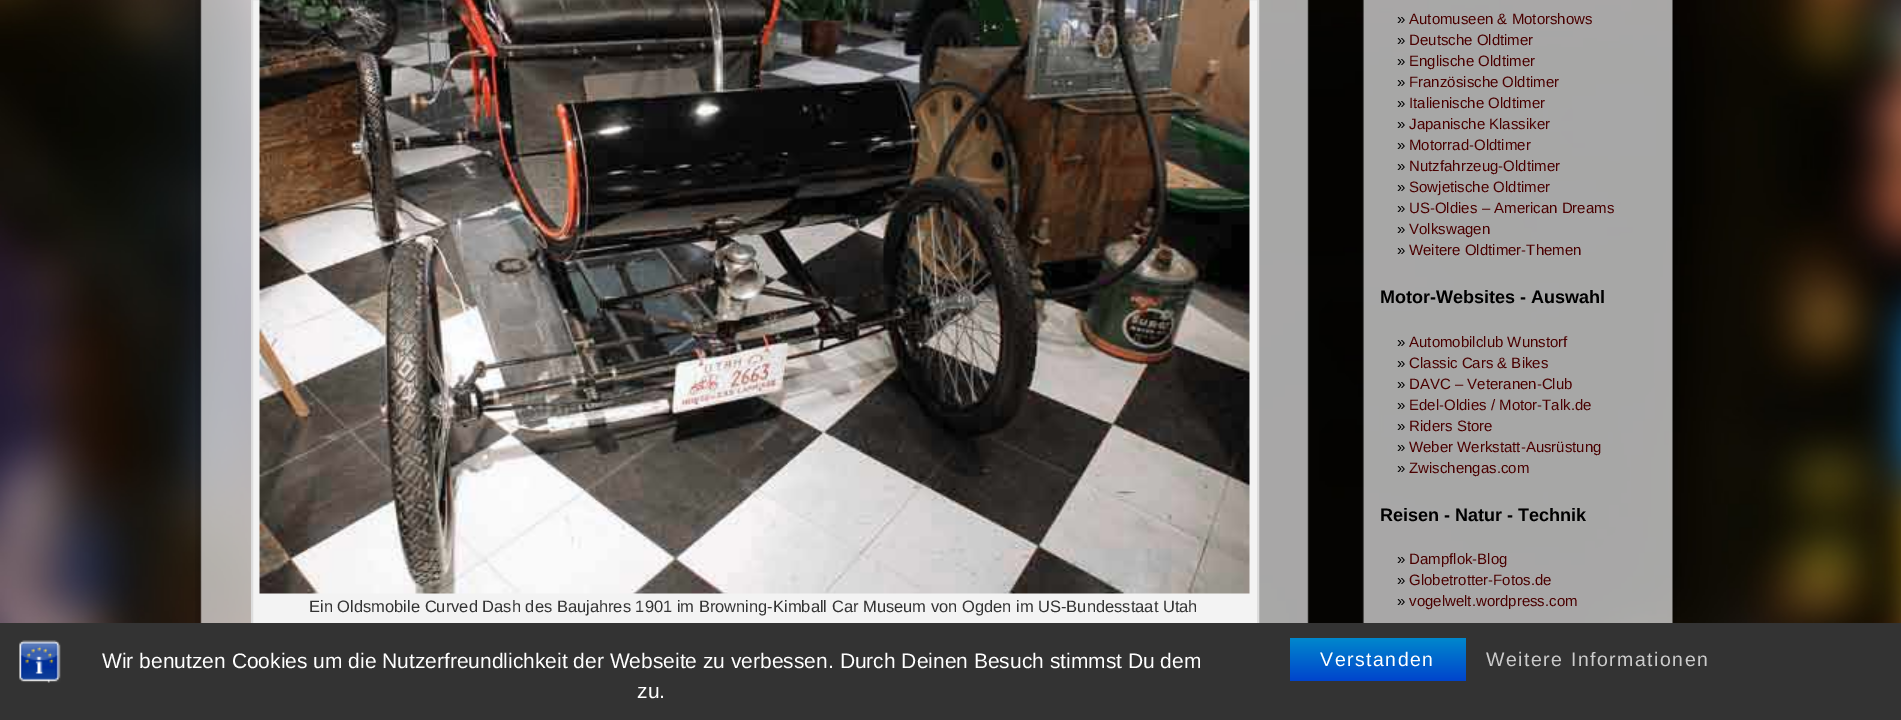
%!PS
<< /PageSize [1901 720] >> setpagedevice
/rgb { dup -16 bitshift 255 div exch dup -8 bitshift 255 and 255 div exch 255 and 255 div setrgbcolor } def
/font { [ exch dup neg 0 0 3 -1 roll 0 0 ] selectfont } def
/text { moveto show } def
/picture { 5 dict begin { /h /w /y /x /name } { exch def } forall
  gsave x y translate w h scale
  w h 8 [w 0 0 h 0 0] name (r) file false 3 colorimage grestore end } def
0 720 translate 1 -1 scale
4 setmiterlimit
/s1 { /LiberationSans-Regular 16.5 font 16#333333 rgb } def
/s2 { /LiberationSans-Regular 15 font 16#000000 rgb } def
/s3 { /LiberationSans-Regular 15 font 16#4A0000 rgb } def
/s4 { /LiberationSans-Bold 18 font 16#000000 rgb } def
/s5 { /LiberationSans-Regular 21 font 16#FFFFFF rgb } def
16#FFFFFF rgb
0 0 1901 720 rectfill
(pic1.raw) 0 0 1901 623 picture
(pic2.raw) 195 0 1114 623 picture
16#F3F3F3 rgb
253 0 1004 623 rectfill
16#DDDDDD rgb
2 setlinewidth
252 -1 1006 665 rectstroke
(pic3.raw) 259 0 991 594 picture
s1
(Ein Oldsmobile Curved Dash des Baujahres 1901 im Browning-Kimball Car Museum von Ogden im US-Bundesstaat Utah) 309 612 text
(pic4.raw) 1362 0 315 623 picture
s2
(») 1397 24 text
s3
(Automuseen & Motorshows) 1409 24 text
s2
(») 1397 45 text
s3
(Deutsche Oldtimer) 1409 45 text
s2
(») 1397 66 text
s3
(Englische Oldtimer) 1409 66 text
s2
(») 1397 87 text
s3
(Französische Oldtimer) 1409 87 text
s2
(») 1397 108 text
s3
(Italienische Oldtimer) 1409 108 text
s2
(») 1397 129 text
s3
(Japanische Klassiker) 1409 129 text
s2
(») 1397 150 text
s3
(Motorrad-Oldtimer) 1409 150 text
s2
(») 1397 171 text
s3
(Nutzfahrzeug-Oldtimer) 1409 171 text
s2
(») 1397 192 text
s3
(Sowjetische Oldtimer) 1409 192 text
s2
(») 1397 213 text
s3
(US-Oldies – American Dreams) 1409 213 text
s2
(») 1397 234 text
s3
(Volkswagen) 1409 234 text
s2
(») 1397 255 text
s3
(Weitere Oldtimer-Themen) 1409 255 text
s4
(Motor-Websites - Auswahl) 1380 303 text
s2
(») 1397 347 text
s3
(Automobilclub Wunstorf) 1409 347 text
s2
(») 1397 368 text
s3
(Classic Cars & Bikes) 1409 368 text
s2
(») 1397 389 text
s3
(DAVC – Veteranen-Club) 1409 389 text
s2
(») 1397 410 text
s3
(Edel-Oldies / Motor-Talk.de) 1409 410 text
s2
(») 1397 431 text
s3
(Riders Store) 1409 431 text
s2
(») 1397 452 text
s3
(Weber Werkstatt-Ausrüstung) 1409 452 text
s2
(») 1397 473 text
s3
(Zwischengas.com) 1409 473 text
s4
(Reisen - Natur - Technik) 1380 521 text
s2
(») 1397 564 text
s3
(Dampflok-Blog) 1409 564 text
s2
(») 1397 585 text
s3
(Globetrotter-Fotos.de) 1409 585 text
s2
(») 1397 606 text
s3
(vogelwelt.wordpress.com) 1409 606 text
16#333333 rgb
0 623 1901 97 rectfill
(pic5.raw) 19 640 42 43 picture
s5
(Wir benutzen Cookies um die Nutzerfreundlichkeit der Webseite zu verbessen. Durch Deinen Besuch stimmst Du dem) 102 668 text
(zu.) 637 698 text
gsave 1290 638 moveto 1466 638 lineto 1466 681 lineto 1290 681 lineto closepath clip newpath
<< /ShadingType 2 /ColorSpace /DeviceRGB /Coords [1378 638 1378 681] /Extend [true true] /Function << /FunctionType 2 /Domain [0 1] /C0 [0 0.533 0.8] /C1 [0 0.267 0.8] /N 1 >> >> shfill grestore
/LiberationSans-Regular 19.5 font
1320 666 moveto 1.5 0 (Verstanden) ashow
16#CCCCCC rgb
1486 666 moveto 1.5 0 (Weitere Informationen) ashow
showpage
